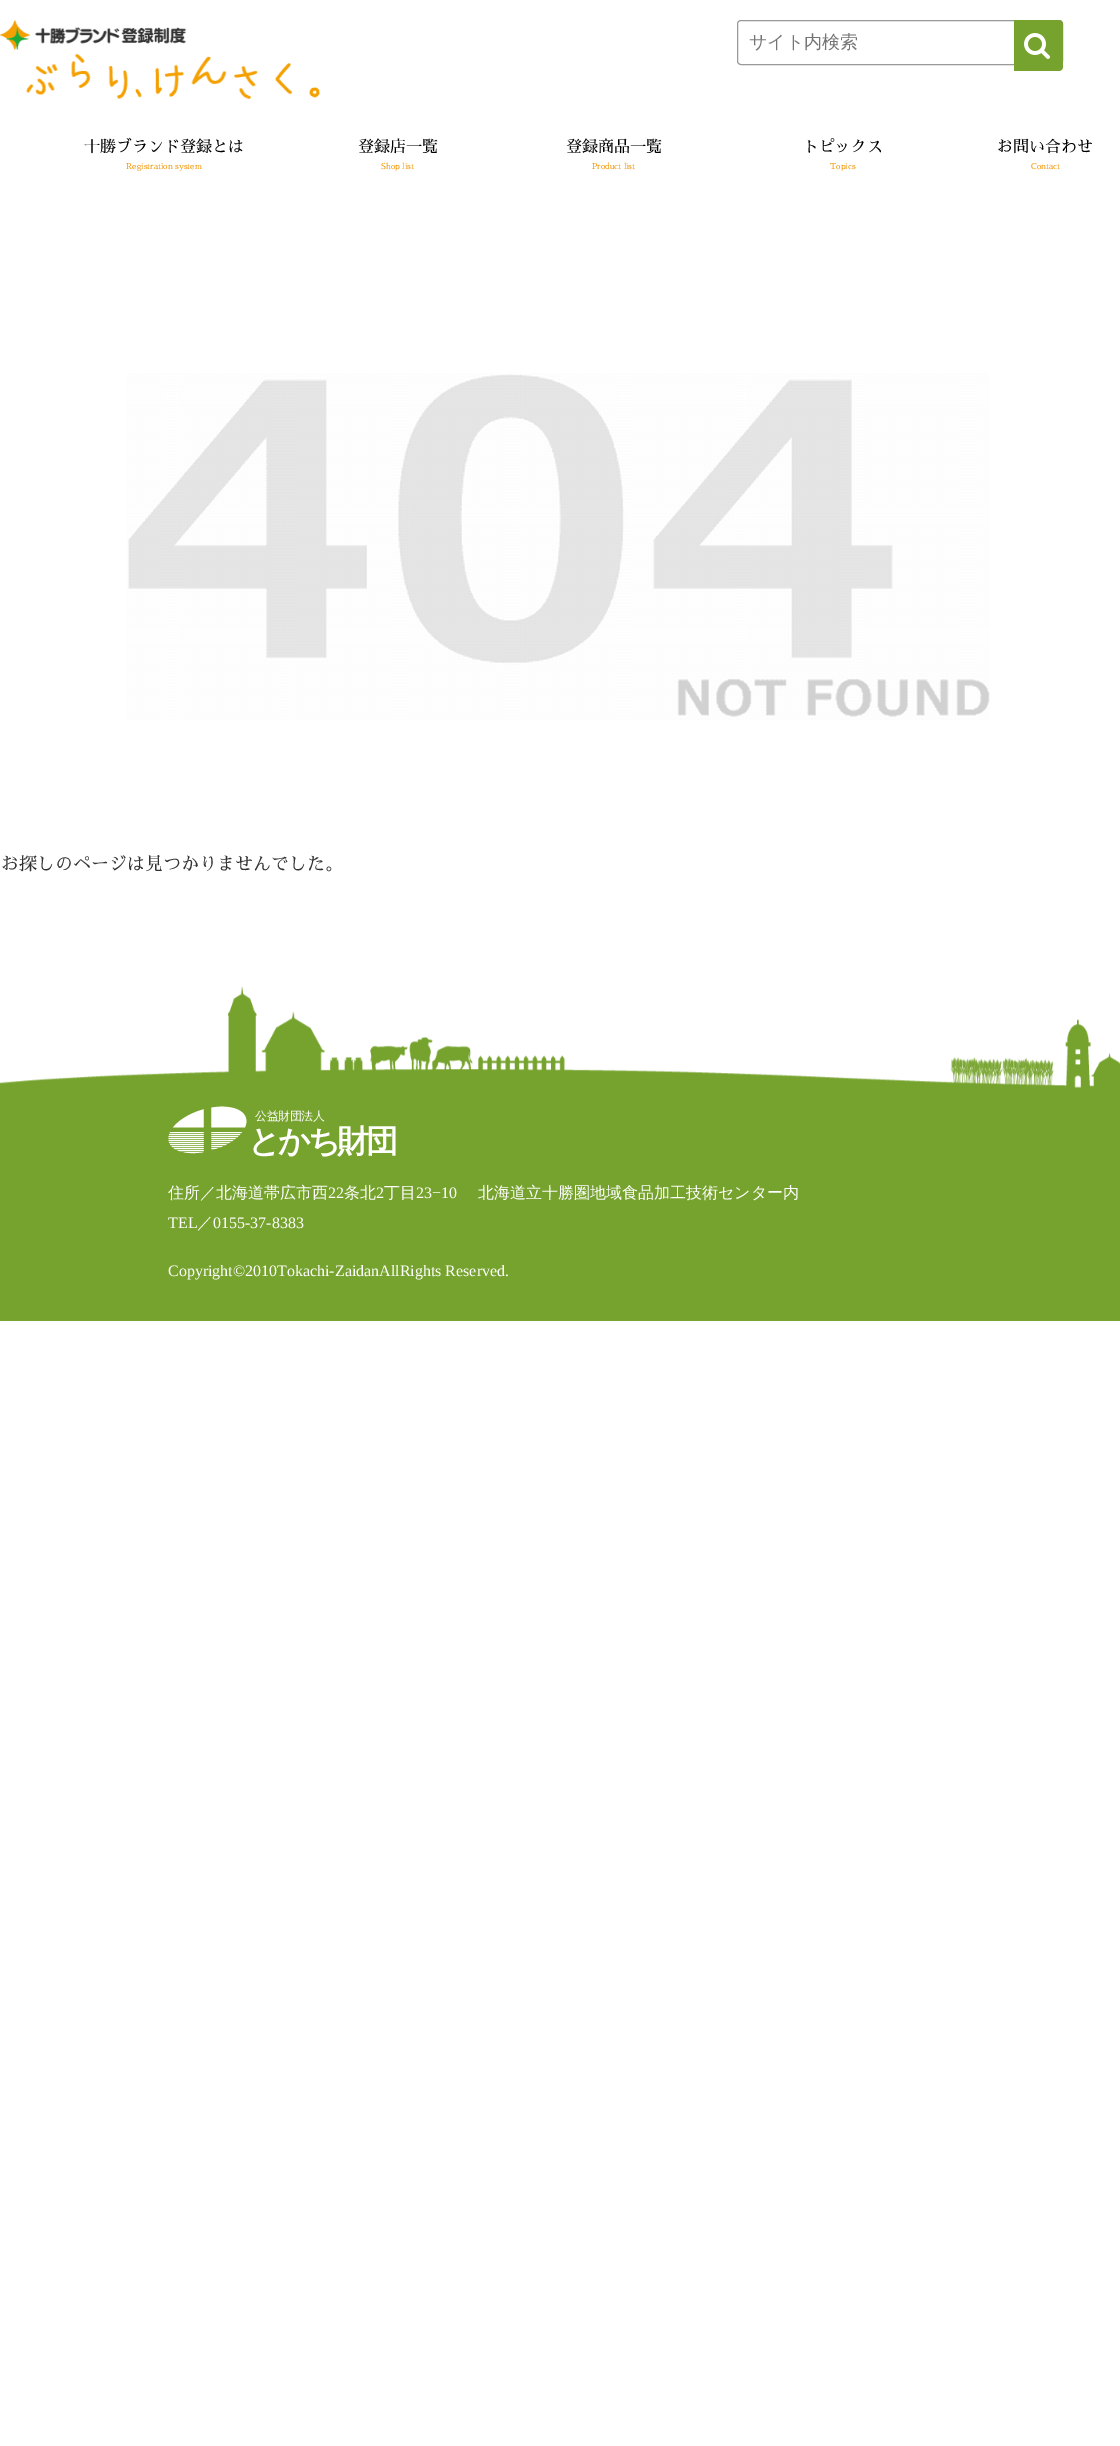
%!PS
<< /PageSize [1120 2446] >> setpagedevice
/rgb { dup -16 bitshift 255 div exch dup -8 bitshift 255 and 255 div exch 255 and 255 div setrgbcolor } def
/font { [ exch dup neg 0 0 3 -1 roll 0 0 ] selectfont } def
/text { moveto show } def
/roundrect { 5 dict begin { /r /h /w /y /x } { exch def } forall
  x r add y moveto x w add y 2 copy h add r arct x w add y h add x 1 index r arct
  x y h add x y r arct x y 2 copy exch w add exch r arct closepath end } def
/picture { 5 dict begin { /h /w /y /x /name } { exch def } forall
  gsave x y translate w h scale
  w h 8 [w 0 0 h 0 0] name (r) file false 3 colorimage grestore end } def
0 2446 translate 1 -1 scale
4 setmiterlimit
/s1 { /WenQuanYiZenHei-Medium 18 font 16#757575 rgb } def
/s2 { /SawarabiMincho-Regular 16 font 16#000000 rgb } def
/s3 { /SawarabiMincho-Regular 8 font 16#F29600 rgb } def
/s4 { /SawarabiMincho-Regular 18 font 16#333333 rgb } def
/s5 { /WenQuanYiZenHei-Medium 16 font 16#FFFFFF rgb } def
/s6 { /LiberationSerif-Regular 16 font 16#FFFFFF rgb } def
16#FFFFFF rgb
0 0 1120 2446 rectfill
(pic1.raw) 0 20 320 79 picture
16#999999 rgb
737.5 20.5 325 44 3.5 roundrect stroke
s1
(サイト内検索) 749 48 text
16#76A32D rgb
1014 20 moveto 1059 20 lineto 1061 20 1063 22 1063 24 curveto 1063 67 lineto 1063 69 1061 71 1059 71 curveto 1014 71 lineto closepath fill
(pic2.raw) 1024 33 26 26 picture
s2
(十勝ブランド登録とは) 84 152 text
s3
(Registration system) 126 169 text
s2
(登録店一覧) 358 152 text
s3
(Shop list) 381 169 text
s2
(登録商品一覧) 566 152 text
s3
(Product list) 592 169 text
s2
(トピックス) 803 152 text
s3
(Topics) 830 169 text
s2
(お問い合わせ) 997 152 text
s3
(Contact) 1031 169 text
(pic3.raw) 127 373 863 347 picture
s4
(お探しのページは見つかりませんでした。) 1 870 text
(pic4.raw) 0 986 1120 335 picture
(pic5.raw) 168 1106 79 48 picture
/WenQuanYiZenHei-Medium 12 font
16#FFFFFF rgb
255 1120 moveto -0.5 0 (公益財団法人) ashow
/WenQuanYiZenHei-Bold 32 font
248 1152 moveto -3 0 (とかち財団) ashow
s5
(住所／北海道帯広市西) 168 1198 text
s6
(22) 328 1198 text
s5
(条北) 344 1198 text
s6
(2) 376 1198 text
s5
(丁目) 384 1198 text
s6
(23−10) 416 1198 text
s5
(北海道立十勝圏地域食品加工技術センター内) 478 1198 text
s6
(TEL) 168 1228 text
s5
(／) 197 1228 text
s6
(0155-37-8383) 213 1228 text
(Copyright©2010Tokachi-ZaidanAllRights Reserved.) 168 1276 text
showpage
